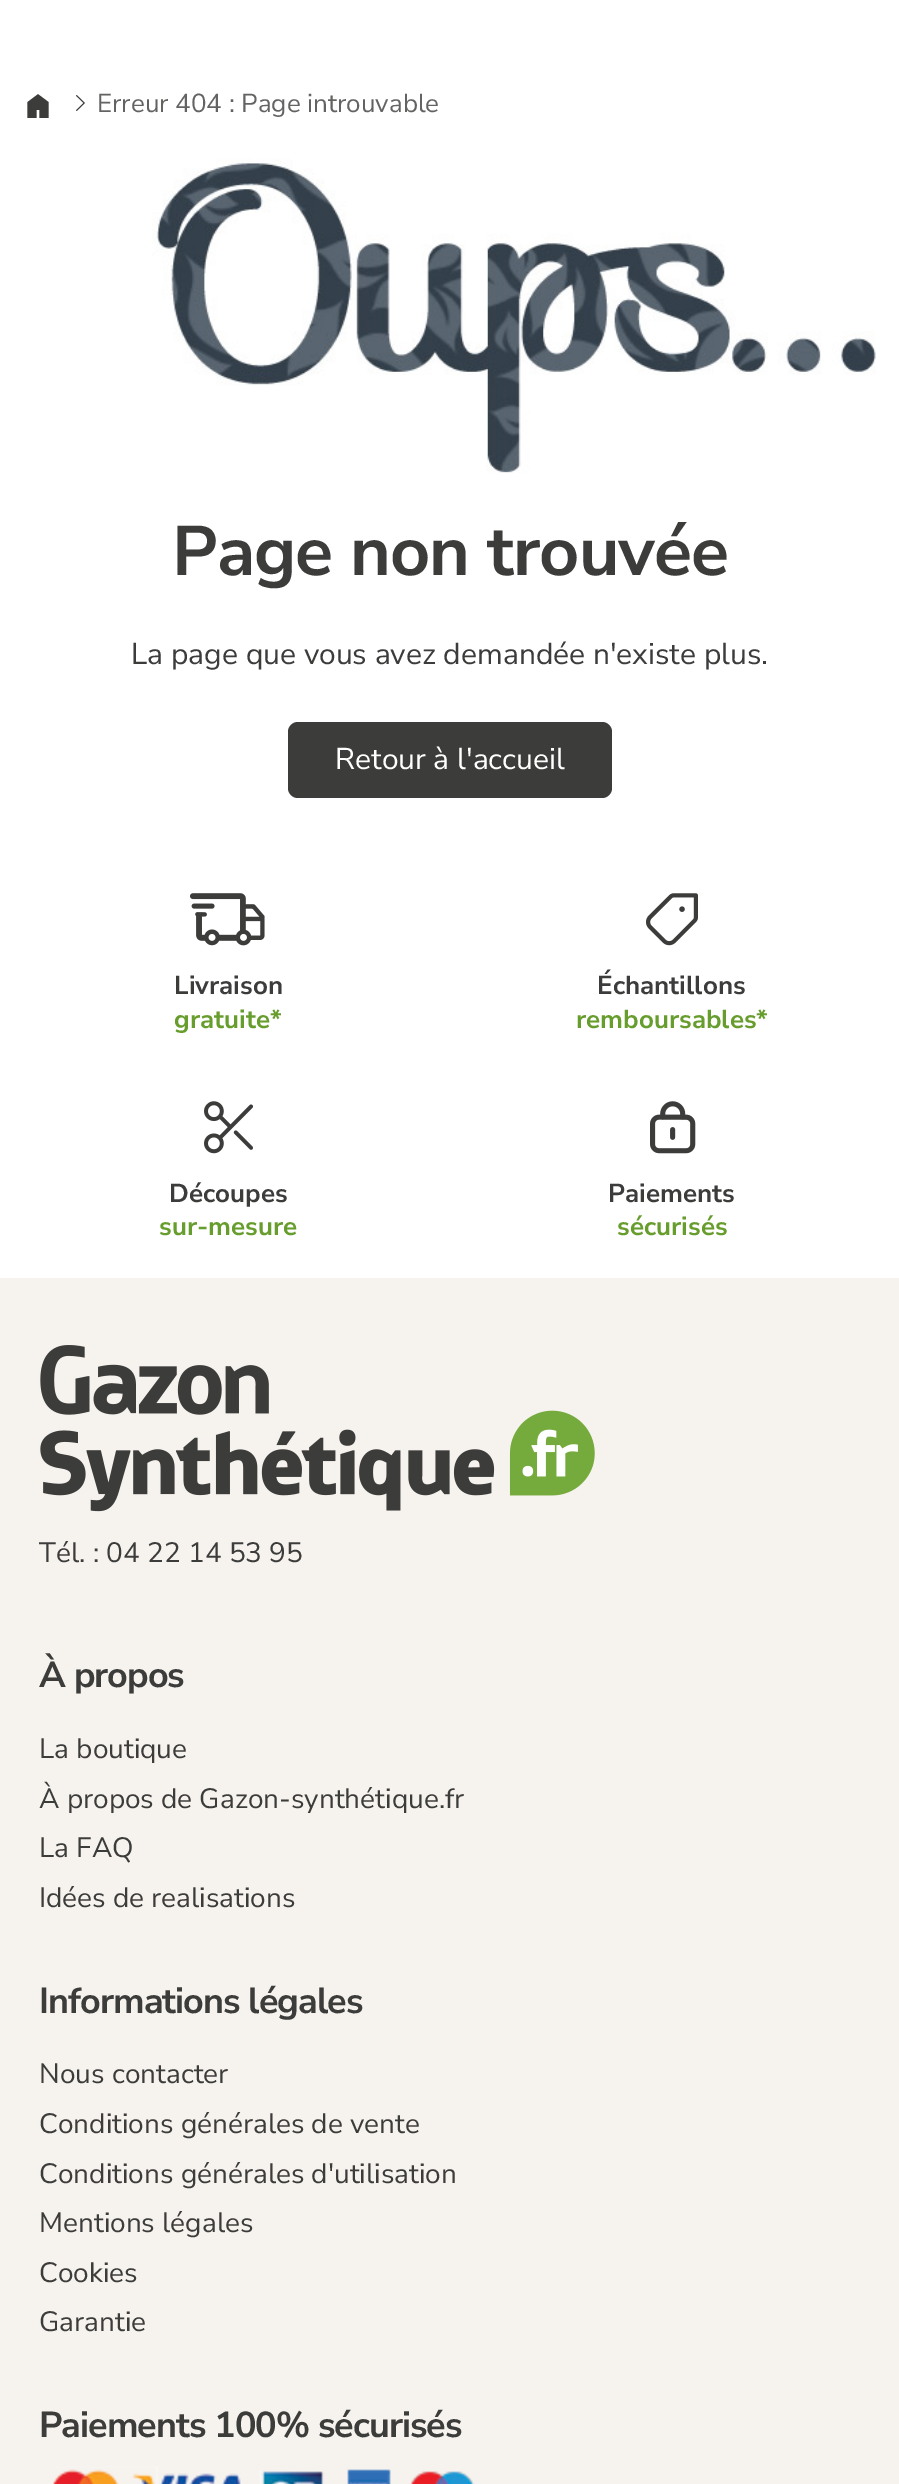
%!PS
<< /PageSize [899 2484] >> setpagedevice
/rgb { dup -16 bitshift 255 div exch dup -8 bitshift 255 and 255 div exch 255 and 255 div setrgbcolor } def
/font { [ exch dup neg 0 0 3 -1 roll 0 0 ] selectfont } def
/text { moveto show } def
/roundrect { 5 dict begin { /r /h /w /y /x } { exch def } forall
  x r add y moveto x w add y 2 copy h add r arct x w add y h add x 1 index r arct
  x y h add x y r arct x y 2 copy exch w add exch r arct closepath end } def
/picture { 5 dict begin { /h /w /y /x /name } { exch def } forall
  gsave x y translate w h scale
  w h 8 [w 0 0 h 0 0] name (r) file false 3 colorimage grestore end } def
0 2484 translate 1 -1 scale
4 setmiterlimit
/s1 { /NunitoSans-Regular 26 font 16#636362 rgb } def
/s2 { /NunitoSans-Regular 30 font 16#3C3C3B rgb } def
/s3 { /NunitoSans-Regular 30 font 16#FFFFFF rgb } def
/s4 { /NunitoSans-Bold 26 font 16#3C3C3B rgb } def
/s5 { /NunitoSans-Bold 26 font 16#679D2D rgb } def
/s6 { /NunitoSans-Regular 28 font 16#3C3C3B rgb } def
16#FFFFFF rgb
0 0 899 2484 rectfill
(pic1.raw) 27 94 22 24 picture
(pic2.raw) 76 95 9 16 picture
s1
(Erreur 404 : Page introuvable) 97 112 text
(pic3.raw) 152 158 724 315 picture
/NunitoSans-Bold 70 font
16#3C3C3B rgb
172 575 moveto -1 0 (Page non trouvée) ashow
s2
(La page que vous avez demandée n'existe plus.) 131 664 text
288 722 324 76 10 roundrect fill
s3
(Retour à l'accueil) 335 769 text
(pic4.raw) 190 893 75 53 picture
s4
(Livraison) 174 994 text
s5
(gratuite*) 174 1028 text
(pic5.raw) 646 893 52 53 picture
s4
(Échantillons) 597 994 text
s5
(remboursables*) 576 1028 text
(pic6.raw) 204 1101 49 53 picture
s4
(Découpes) 169 1202 text
s5
(sur-mesure) 159 1235 text
(pic7.raw) 650 1101 46 53 picture
s4
(Paiements) 608 1202 text
s5
(sécurisés) 617 1235 text
16#F6F3EF rgb
0 1278 899 1206 rectfill
(pic8.raw) 40 1345 555 167 picture
s6
(Tél. : 04 22 14 53 95) 39 1562 text
/NunitoSans-Bold 36 font
39 1687 moveto -1 0 (À propos) ashow
s6
(La boutique) 39 1758 text
(À propos de Gazon-synthétique.fr) 39 1808 text
(La FAQ) 39 1857 text
(Idées de realisations) 39 1907 text
/NunitoSans-Bold 36 font
39 2013 moveto -1 0 (Informations légales) ashow
s6
(Nous contacter) 39 2083 text
(Conditions générales de vente) 39 2133 text
(Conditions générales d'utilisation) 39 2183 text
(Mentions légales) 39 2232 text
(Cookies) 39 2282 text
(Garantie) 39 2331 text
/NunitoSans-Bold 36 font
39 2437 moveto -1 0 (Paiements 100% sécurisés) ashow
(pic9.raw) 52 2466 423 18 picture
showpage
